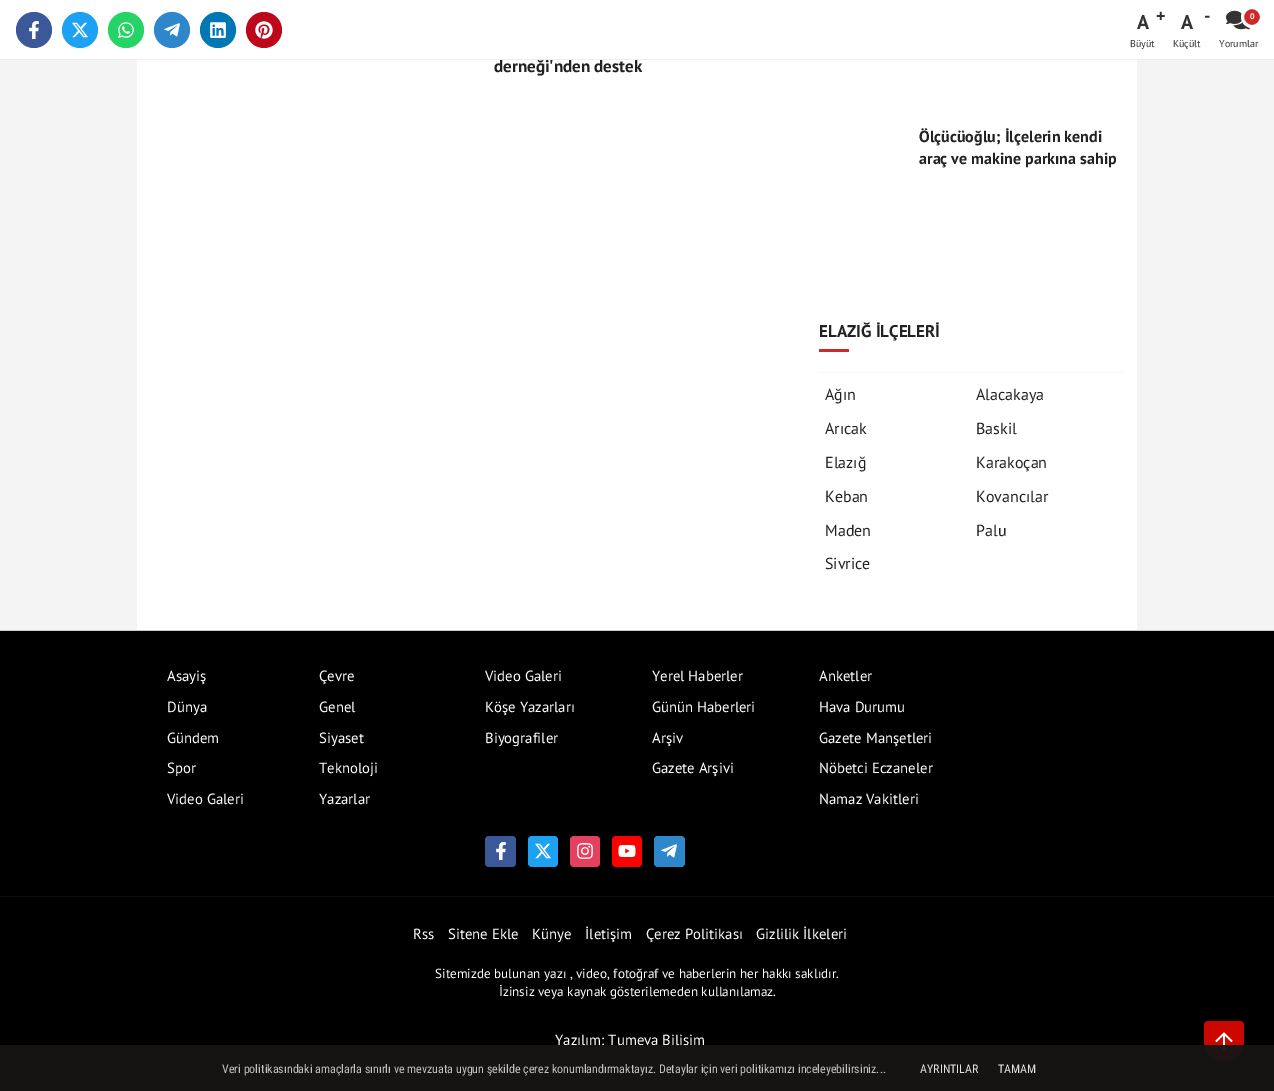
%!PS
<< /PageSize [1274 1091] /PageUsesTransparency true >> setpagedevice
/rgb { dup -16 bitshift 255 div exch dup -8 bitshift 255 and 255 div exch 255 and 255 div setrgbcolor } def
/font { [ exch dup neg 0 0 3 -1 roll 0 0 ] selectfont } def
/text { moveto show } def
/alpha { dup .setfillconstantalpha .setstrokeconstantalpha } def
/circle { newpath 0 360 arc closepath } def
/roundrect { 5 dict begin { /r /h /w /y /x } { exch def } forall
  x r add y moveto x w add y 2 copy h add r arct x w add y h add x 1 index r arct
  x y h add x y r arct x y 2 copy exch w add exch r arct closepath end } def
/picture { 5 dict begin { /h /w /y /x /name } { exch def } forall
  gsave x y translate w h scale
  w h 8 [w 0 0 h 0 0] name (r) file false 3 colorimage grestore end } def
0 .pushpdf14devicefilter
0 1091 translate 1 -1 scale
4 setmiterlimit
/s1 { /PTSans-Bold 17 font 16#222222 rgb } def
/s2 { /PTSans-Bold 20 font 16#333333 rgb } def
/s3 { /PTSans-Bold 18 font 16#333333 rgb } def
/s4 { /PTSans-Regular 10 font 16#333333 rgb } def
/s5 { /PTSans-Bold 8 font 16#FFFFFF rgb } def
/s6 { /PTSans-Bold 16 font 16#222222 rgb } def
/s7 { /PTSans-Regular 16 font 16#222222 rgb } def
/s8 { /PTSans-Regular 14.75 font 16#FFFFFF rgb } def
/s9 { /PTSans-Regular 13.2 font 16#FFFFFF rgb } def
/s10 { /RobotoCondensed-Regular 12 font 16#C2C2C2 rgb } def
/s11 { /RobotoCondensed-Regular 12 font 16#E2E2E2 rgb } def
16#F4F4F4 rgb
0 0 1274 1091 rectfill
16#FFFFFF rgb
0 0 1274 59 rectfill
137 60 1000 570 rectfill
s1
(derneği'nden destek) 494 72 text
16#EFEEEE rgb
0 59 1274 1 rectfill
16#3B5998 rgb
34 30 18 circle fill
(pic1.raw) 29 21 10 18 picture
16#1DA1F2 rgb
80 30 18 circle fill
(pic2.raw) 72 22 16 16 picture
16#25D366 rgb
126 30 18 circle fill
(pic3.raw) 118 22 16 16 picture
16#2E87CA rgb
172 30 18 circle fill
(pic4.raw) 164 23 16 14 picture
16#0077B5 rgb
218 30 18 circle fill
(pic5.raw) 210 22 16 16 picture
16#BD081C rgb
264 30 18 circle fill
(pic6.raw) 255 21 18 18 picture
s2
(A) 1137 29 text
s3
(+) 1156 22 text
s4
(Büyüt) 1130 47 text
s2
(A) 1181 29 text
s3
(-) 1204 22 text
s4
(Küçült) 1173 47 text
(pic7.raw) 1226 10 24 20 picture
16#CC292B rgb
1252 17 9.5 circle gsave fill grestore
16#FFFFFF rgb
3 setlinewidth
stroke
s5
(0) 1250 19 text
s4
(Yorumlar) 1219 47 text
s6
(Ölçücüoğlu; İlçelerin kendi) 919 142 text
(araç ve makine parkına sahip) 919 164 text
16#F3F5F6 rgb
819 372 303 1 rectfill
s1
(ELAZIĞ İLÇELERİ) 819 337 text
16#CC292B rgb
819 349 30 3 rectfill
s7
(Ağın) 825 400 text
(Alacakaya) 976 400 text
(Arıcak) 825 434 text
(Baskil) 976 434 text
(Elazığ) 825 468 text
(Karakoçan) 976 468 text
(Keban) 825 502 text
(Kovancılar) 976 502 text
(Maden) 825 536 text
(Palu) 976 536 text
(Sivrice) 825 569 text
16#000000 rgb
0 631 1274 460 rectfill
16#CCCCCC rgb
0 630 1274 1 rectfill
s8
(Asayiş) 167 681 text
(Çevre) 319 681 text
(Dünya) 167 712 text
(Genel) 319 712 text
(Gündem) 167 743 text
(Siyaset) 319 743 text
(Spor) 167 773 text
(Teknoloji) 319 773 text
(Video Galeri) 167 804 text
(Yazarlar) 319 804 text
(Video Galeri) 485 681 text
(Köşe Yazarları) 485 712 text
(Biyografiler) 485 743 text
(Yerel Haberler) 652 681 text
(Günün Haberleri) 652 712 text
(Arşiv) 652 743 text
(Gazete Arşivi) 652 773 text
(Anketler) 819 681 text
(Hava Durumu) 819 712 text
(Gazete Manşetleri) 819 743 text
(Nöbetci Eczaneler) 819 773 text
(Namaz Vakitleri) 819 804 text
16#3B5998 rgb
485 836 31 31 4 roundrect fill
(pic1.raw) 496 842 10 18 picture
16#1DA1F2 rgb
528 836 30 31 4 roundrect fill
(pic2.raw) 535 843 16 16 picture
16#E4405F rgb
570 836 30 31 4 roundrect fill
(pic8.raw) 577 843 16 16 picture
16#FF0000 rgb
612 836 30 31 4 roundrect fill
(pic9.raw) 618 845 18 12 picture
16#2E87CA rgb
654 836 31 31 4 roundrect fill
(pic4.raw) 661 844 16 14 picture
16#0E0F11 rgb
0 896 1274 1 rectfill
s8
(Rss) 413 939 text
(Sitene Ekle) 448 939 text
(Künye) 532 939 text
(İletişim) 585 939 text
(Çerez Politikası) 646 939 text
(Gizlilik İlkeleri) 756 939 text
s9
(Sitemizde bulunan yazı , video, fotoğraf ve haberlerin her hakkı saklıdır.) 435 978 text
(İzinsiz veya kaynak gösterilemeden kullanılamaz.) 499 996 text
s8
(Yazılım: Tumeva Bilişim) 555 1045 text
16#CC0700 rgb
1208 1021 moveto 1240 1021 lineto 1242 1021 1244 1023 1244 1025 curveto 1244 1041 lineto 1244 1052 1235 1061 1224 1061 curveto 1213 1061 1204 1052 1204 1041 curveto 1204 1025 lineto 1204 1023 1206 1021 1208 1021 curveto closepath fill
(pic10.raw) 1215 1032 18 18 picture
0.95 alpha
16#171414 rgb
0 1045 1274 46 rectfill
1 alpha
s10
(Veri politikasındaki amaçlarla sınırlı ve mevzuata uygun şekilde çerez konumlandırmaktayız. Detaylar için veri politikamızı inceleyebilirsiniz...) 222 1073 text
s11
(AYRINTILAR) 920 1073 text
(TAMAM) 998 1073 text
.poppdf14devicefilter showpage
